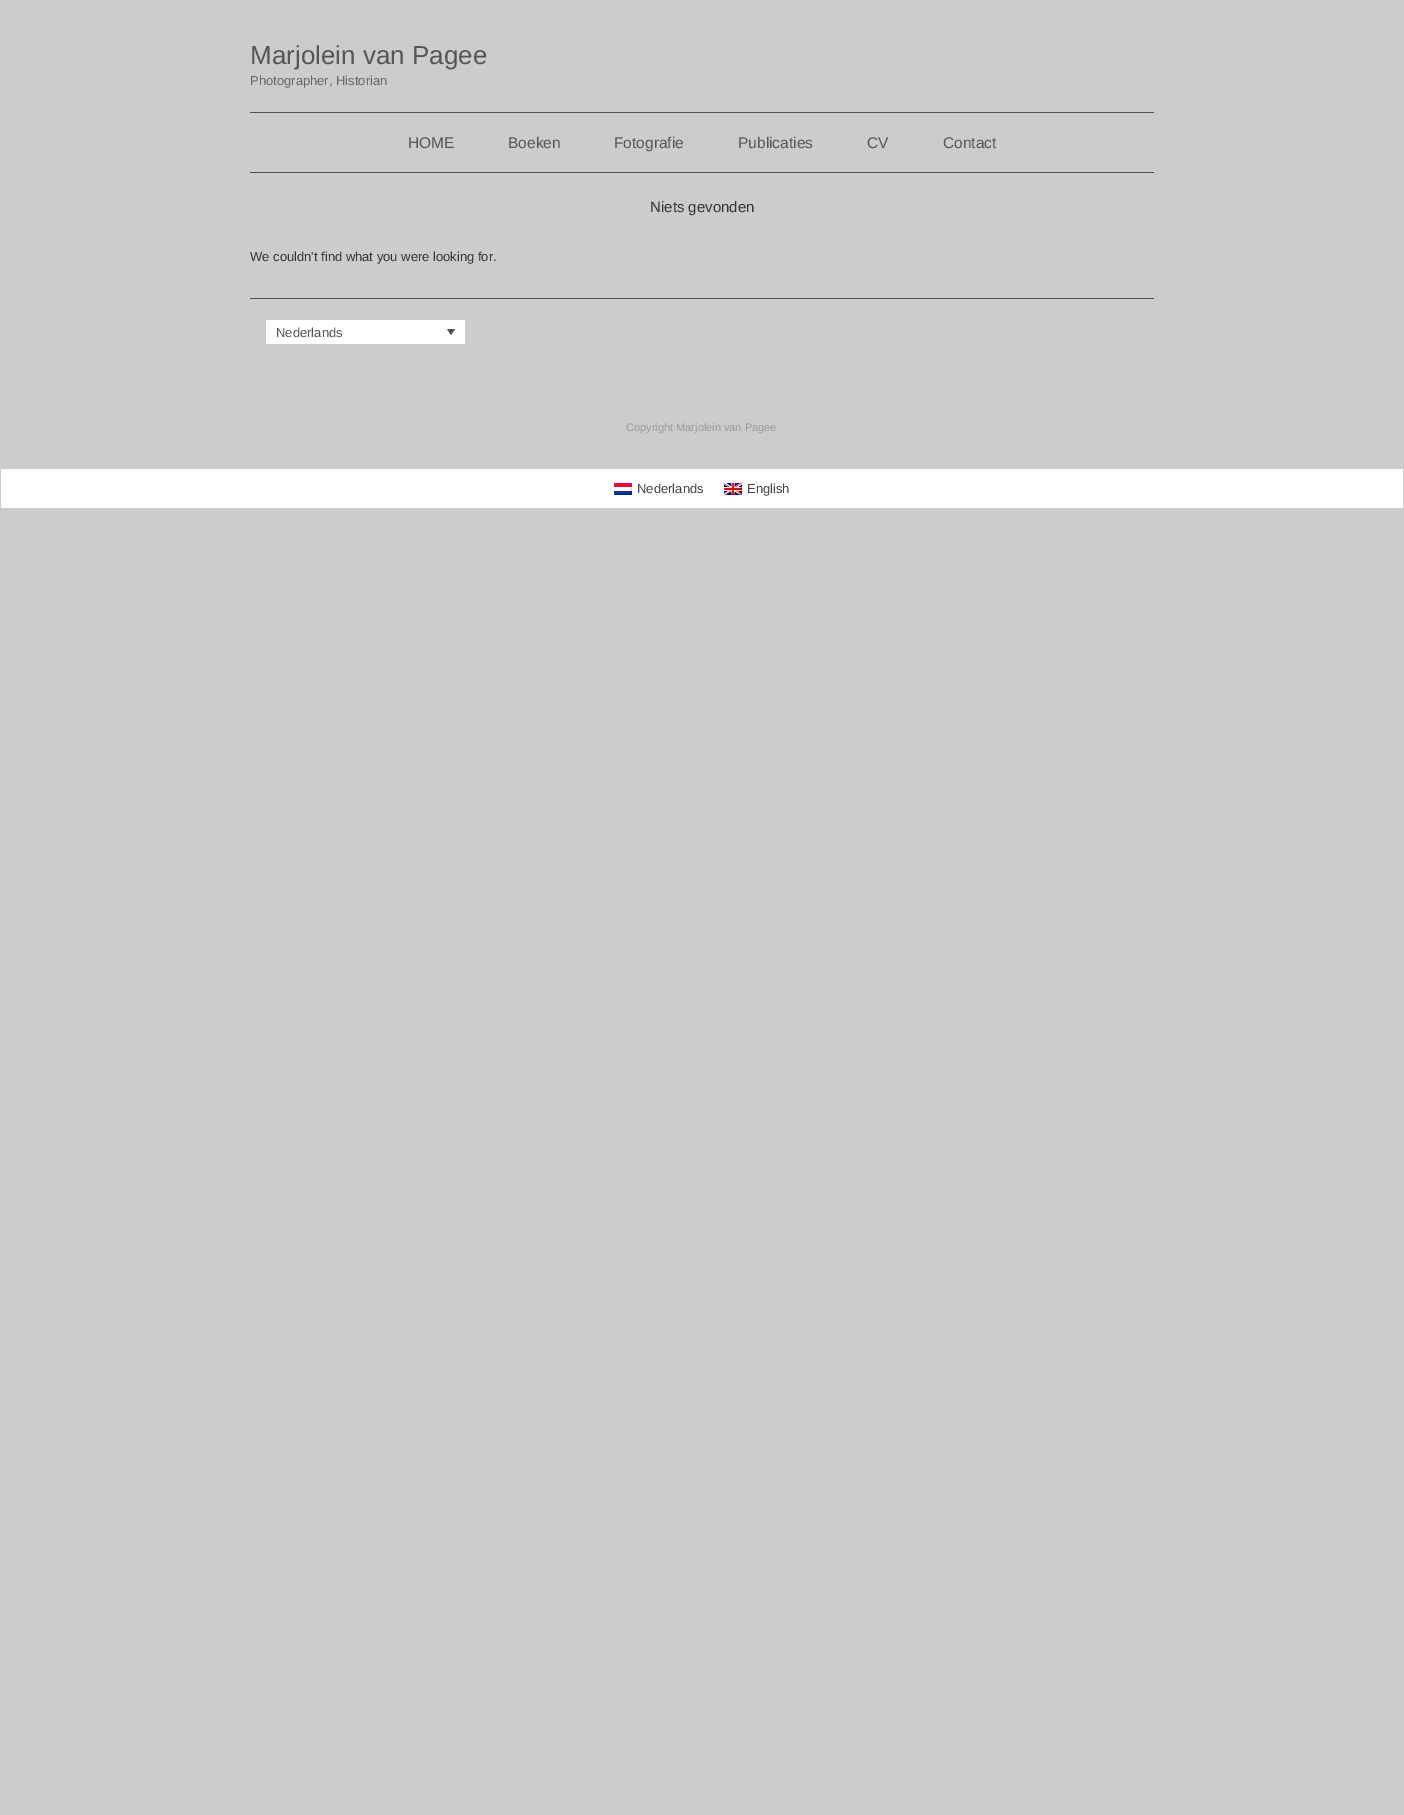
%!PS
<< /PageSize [1404 1815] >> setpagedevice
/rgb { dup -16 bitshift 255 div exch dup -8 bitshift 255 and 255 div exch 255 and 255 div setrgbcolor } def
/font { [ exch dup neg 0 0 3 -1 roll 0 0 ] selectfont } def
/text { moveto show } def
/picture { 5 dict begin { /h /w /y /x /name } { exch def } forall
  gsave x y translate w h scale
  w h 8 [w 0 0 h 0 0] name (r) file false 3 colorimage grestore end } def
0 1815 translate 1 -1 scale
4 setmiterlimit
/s1 { /LiberationSans-Regular 26 font 16#555555 rgb } def
/s2 { /LiberationSans-Regular 13 font 16#666666 rgb } def
/s3 { /LiberationSans-Regular 15.5 font 16#555555 rgb } def
/s4 { /LiberationSans-Regular 15 font 16#333333 rgb } def
/s5 { /LiberationSans-Regular 13 font 16#333333 rgb } def
/s6 { /LiberationSans-Regular 13 font 16#555555 rgb } def
/s7 { /LiberationSans-Regular 11 font 16#999999 rgb } def
/s8 { /LiberationSans-Regular 13 font 16#444444 rgb } def
16#CCCCCC rgb
0 0 1404 1815 rectfill
s1
(Marjolein van Pagee) 250 64 text
s2
(Photographer, Historian) 250 85 text
16#505050 rgb
250 112 904 1 rectfill
250 172 904 1 rectfill
s3
(HOME) 408 148 text
(Boeken) 508 148 text
(Fotografie) 614 148 text
(Publicaties) 738 148 text
(CV) 867 148 text
(Contact) 943 148 text
s4
(Niets gevonden) 650 212 text
s5
(We couldn't find what you were looking for.) 250 261 text
16#505050 rgb
250 298 904 1 rectfill
16#FFFFFF rgb
266 320 199 24 rectfill
s6
(Nederlands) 276 337 text
16#505050 rgb
447 329 moveto 455 329 lineto 451 335 lineto closepath fill
s7
(Copyright Marjolein van Pagee) 626 431 text
16#FFFFFF rgb
1 469 1402 39 rectfill
(pic1.raw) 614 483 18 12 picture
s8
(Nederlands) 637 493 text
(pic2.raw) 724 483 18 12 picture
(English) 747 493 text
showpage
